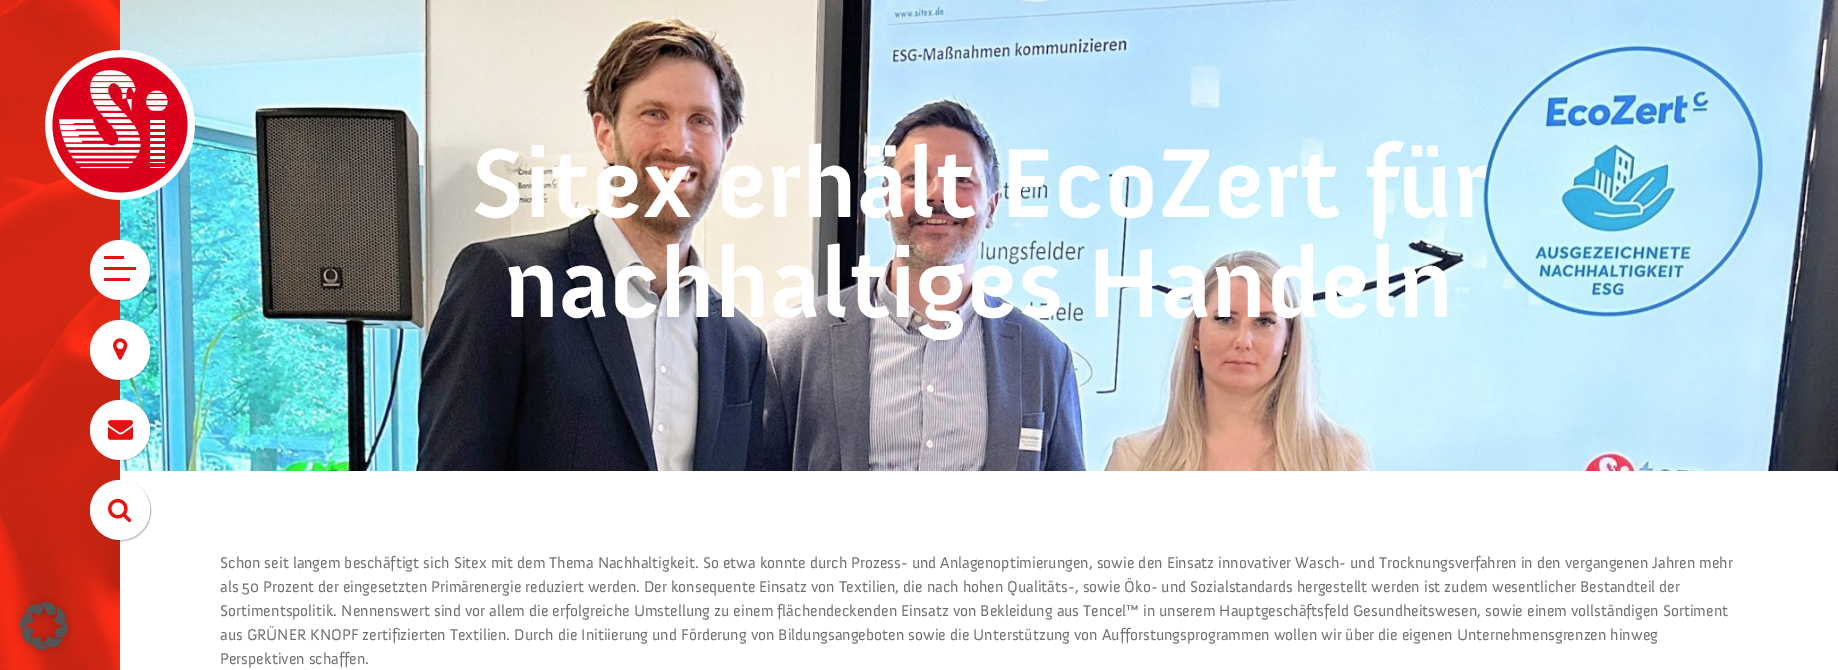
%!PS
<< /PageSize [1838 670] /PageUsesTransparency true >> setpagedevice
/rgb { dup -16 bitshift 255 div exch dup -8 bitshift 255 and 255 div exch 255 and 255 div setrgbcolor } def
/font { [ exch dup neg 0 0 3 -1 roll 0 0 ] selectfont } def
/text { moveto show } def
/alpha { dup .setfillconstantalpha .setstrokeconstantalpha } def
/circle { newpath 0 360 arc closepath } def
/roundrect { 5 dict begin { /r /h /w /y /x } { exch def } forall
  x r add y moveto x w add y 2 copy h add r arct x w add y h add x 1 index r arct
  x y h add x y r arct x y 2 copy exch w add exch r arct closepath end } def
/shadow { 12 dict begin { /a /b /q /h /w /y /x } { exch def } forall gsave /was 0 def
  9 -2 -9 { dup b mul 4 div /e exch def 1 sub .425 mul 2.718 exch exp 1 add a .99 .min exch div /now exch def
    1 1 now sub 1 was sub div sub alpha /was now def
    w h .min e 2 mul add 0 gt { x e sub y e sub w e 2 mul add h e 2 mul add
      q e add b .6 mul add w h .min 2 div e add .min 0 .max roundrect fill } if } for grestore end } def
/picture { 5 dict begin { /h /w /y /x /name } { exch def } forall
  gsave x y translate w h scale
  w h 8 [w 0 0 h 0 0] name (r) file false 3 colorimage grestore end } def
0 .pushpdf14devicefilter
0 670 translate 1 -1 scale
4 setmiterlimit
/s1 { /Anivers-Bold 100 font 16#FFFFFF rgb } def
/s2 { /Anivers-Regular 16 font 16#707070 rgb } def
16#FFFFFF rgb
0 0 1838 670 rectfill
(pic1.raw) 0 0 120 670 picture
(pic6.raw) 120 0 1718 471 picture
(pic2.raw) 45 50 150 150 picture
16#000000 rgb
91 241 60 60 30 0.5 0.15 shadow
16#FFFFFF rgb
120 270 30 circle fill
16#E31412 rgb
104 256 20 3 rectfill
104 267 32 3 rectfill
104 278 26 3 rectfill
16#000000 rgb
91 321 60 60 30 0.5 0.15 shadow
16#FFFFFF rgb
120 350 30 circle fill
(pic3.raw) 113 338 15 22 picture
16#000000 rgb
91 401 60 60 30 0.5 0.15 shadow
16#FFFFFF rgb
120 430 30 circle fill
(pic4.raw) 108 420 25 20 picture
16#000000 rgb
91 481 60 60 30 0.5 0.15 shadow
91 481 60 60 30 0.5 0.15 shadow
16#FFFFFF rgb
120 510 30 circle fill
(pic5.raw) 108 498 24 25 picture
s1
(Sitex erhält EcoZert für) 471 217 text
(nachhaltiges Handeln) 504 317 text
s2
(Schon seit langem beschäftigt sich Sitex mit dem Thema Nachhaltigkeit. So etwa konnte durch Prozess- und Anlagenoptimierungen, sowie den Einsatz innovativer Wasch- und Trocknungsverfahren in den vergangenen Jahren mehr) 220 568 text
(als 50 Prozent der eingesetzten Primärenergie reduziert werden. Der konsequente Einsatz von Textilien, die nach hohen Qualitäts-, sowie Öko- und Sozialstandards hergestellt werden ist zudem wesentlicher Bestandteil der) 220 592 text
(Sortimentspolitik. Nennenswert sind vor allem die erfolgreiche Umstellung zu einem flächendeckenden Einsatz von Bekleidung aus Tencel™ in unserem Hauptgeschäftsfeld Gesundheitswesen, sowie einem vollständigen Sortiment) 220 616 text
(aus GRÜNER KNOPF zertifizierten Textilien. Durch die Initiierung und Förderung von Bildungsangeboten sowie die Unterstützung von Aufforstungsprogrammen wollen wir über die eigenen Unternehmensgrenzen hinweg) 220 640 text
(Perspektiven schaffen.) 220 664 text
(pic7.raw) 15 597 57 57 picture
.poppdf14devicefilter showpage
